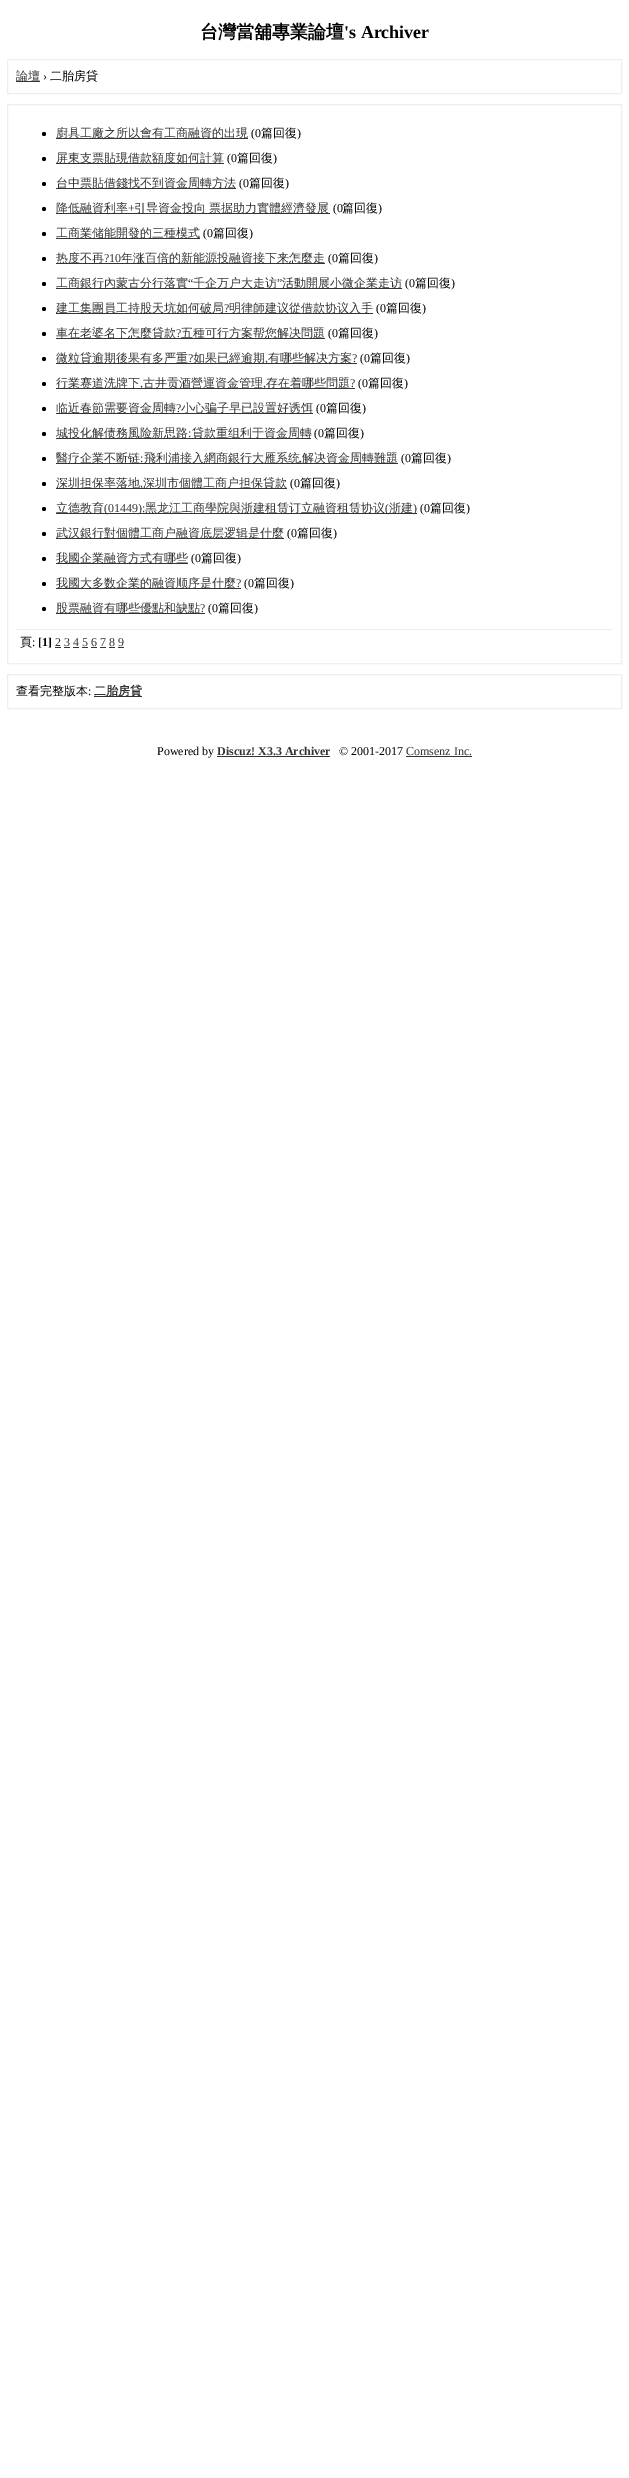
%!PS
<< /PageSize [629 2478] >> setpagedevice
/rgb { dup -16 bitshift 255 div exch dup -8 bitshift 255 and 255 div exch 255 and 255 div setrgbcolor } def
/font { [ exch dup neg 0 0 3 -1 roll 0 0 ] selectfont } def
/text { moveto show } def
/circle { newpath 0 360 arc closepath } def
0 2478 translate 1 -1 scale
4 setmiterlimit
/s1 { /WenQuanYiZenHei-Bold 18 font 16#000000 rgb } def
/s2 { /LiberationSerif-Bold 18 font 16#000000 rgb } def
/s3 { /WenQuanYiZenHei-Medium 12 font 16#333333 rgb } def
/s4 { /LiberationSerif-Regular 12 font 16#000000 rgb } def
/s5 { /WenQuanYiZenHei-Medium 12 font 16#000000 rgb } def
/s6 { /LiberationSerif-Regular 12 font 16#333333 rgb } def
/s7 { /LiberationSerif-Bold 12 font 16#000000 rgb } def
/s8 { /WenQuanYiZenHei-Bold 12 font 16#333333 rgb } def
/s9 { /LiberationSerif-Bold 12 font 16#333333 rgb } def
16#FFFFFF rgb
0 0 629 2478 rectfill
s1
(台灣當舖專業論壇) 200 38 text
s2
('s Archiver) 344 38 text
16#EEEEEE rgb
7.5 59.5 614 34 rectstroke
16#333333 rgb
16 81 24 1 rectfill
s3
(論壇) 16 80 text
s4
(›) 43 80 text
s5
(二胎房貸) 50 80 text
16#EEEEEE rgb
7.5 104.5 614 559 rectstroke
16#000000 rgb
44 134 2 circle fill
16#333333 rgb
56 138 192 1 rectfill
(廚具工廠之所以會有工商融資的出現) 56 137 text
s4
(\(0) 251 137 text
s5
(篇回復) 261 137 text
s4
(\)) 297 137 text
44 159 2 circle fill
16#333333 rgb
56 163 168 1 rectfill
s3
(屏東支票貼現借款額度如何計算) 56 162 text
s4
(\(0) 227 162 text
s5
(篇回復) 237 162 text
s4
(\)) 273 162 text
44 184 2 circle fill
16#333333 rgb
56 188 180 1 rectfill
s3
(台中票貼借錢找不到資金周轉方法) 56 187 text
s4
(\(0) 239 187 text
s5
(篇回復) 249 187 text
s4
(\)) 285 187 text
44 209 2 circle fill
16#333333 rgb
56 213 274 1 rectfill
s3
(降低融資利率) 56 212 text
s6
(+) 128 212 text
/WenQuanYiZenHei-Medium 12 font
134 212 moveto -1 0 32 (引导資金投向 票据助力實體經濟發展) widthshow
s4
(\(0) 333 212 text
s5
(篇回復) 342 212 text
s4
(\)) 378 212 text
44 234 2 circle fill
16#333333 rgb
56 238 144 1 rectfill
s3
(工商業储能開發的三種模式) 56 237 text
s4
(\(0) 203 237 text
s5
(篇回復) 213 237 text
s4
(\)) 249 237 text
44 259 2 circle fill
16#333333 rgb
56 263 269 1 rectfill
s3
(热度不再) 56 262 text
s6
(?10) 104 262 text
s3
(年涨百倍的新能源投融資接下来怎麼走) 121 262 text
s4
(\(0) 328 262 text
s5
(篇回復) 338 262 text
s4
(\)) 374 262 text
16#333333 rgb
56 288 346 1 rectfill
s3
(工商銀行內蒙古分行落實) 56 287 text
s6
(“) 188 287 text
s3
(千企万户大走访) 193 287 text
s6
(”) 277 287 text
s3
(活動開展小微企業走访) 282 287 text
s4
(\(0) 405 287 text
s5
(篇回復) 415 287 text
s4
(\)) 451 287 text
44 284 2 circle fill
44 309 2 circle fill
16#333333 rgb
56 313 317 1 rectfill
s3
(建工集團員工持股天坑如何破局) 56 312 text
s6
(?) 224 312 text
s3
(明律師建议從借款协议入手) 229 312 text
s4
(\(0) 376 312 text
s5
(篇回復) 386 312 text
s4
(\)) 422 312 text
44 334 2 circle fill
16#333333 rgb
56 338 269 1 rectfill
s3
(車在老婆名下怎麼貸款) 56 337 text
s6
(?) 176 337 text
s3
(五種可行方案帮您解决問題) 181 337 text
s4
(\(0) 328 337 text
s5
(篇回復) 338 337 text
s4
(\)) 374 337 text
44 359 2 circle fill
16#333333 rgb
56 363 301 1 rectfill
s3
(微粒貸逾期後果有多严重) 56 362 text
s6
(?) 188 362 text
s3
(如果已經逾期) 193 362 text
(有哪些解决方案) 268 362 text
s6
(?) 352 362 text
s4
(\(0) 360 362 text
s5
(篇回復) 370 362 text
s4
(\)) 406 362 text
s6
(,) 265 362 text
16#000000 rgb
44 384 2 circle fill
16#333333 rgb
56 388 299 1 rectfill
s3
(行業赛道洗牌下) 56 387 text
(古井贡酒營運資金管理) 143 387 text
(存在着哪些問題) 266 387 text
s6
(?) 350 387 text
s4
(\(0) 358 387 text
s5
(篇回復) 368 387 text
s4
(\)) 404 387 text
s6
(,) 140 387 text
(,) 263 387 text
16#000000 rgb
44 409 2 circle fill
16#333333 rgb
56 413 257 1 rectfill
s3
(临近春節需要資金周轉) 56 412 text
s6
(?) 176 412 text
s3
(小心骗子早已設置好诱饵) 181 412 text
s4
(\(0) 316 412 text
s5
(篇回復) 326 412 text
s4
(\)) 362 412 text
16#333333 rgb
56 438 255 1 rectfill
s3
(城投化解债務風险新思路 貸款重组利于資金周轉) 56 437 text
s4
(\(0) 314 437 text
s5
(篇回復) 324 437 text
s4
(\)) 360 437 text
44 434 2 circle fill
s6
(:) 188 437 text
56 463 342 1 rectfill
s3
(醫疗企業不断链 飛利浦接入網商銀行大雁系统) 56 462 text
(解决資金周轉難題) 302 462 text
s4
(\(0) 401 462 text
s5
(篇回復) 411 462 text
s4
(\)) 447 462 text
44 459 2 circle fill
s6
(:) 140 462 text
(,) 299 462 text
16#000000 rgb
44 484 2 circle fill
16#333333 rgb
56 488 231 1 rectfill
s3
(深圳担保率落地) 56 487 text
(深圳市個體工商户担保貸款) 143 487 text
s4
(\(0) 290 487 text
s5
(篇回復) 300 487 text
s4
(\)) 336 487 text
s6
(,) 140 487 text
16#000000 rgb
44 509 2 circle fill
16#333333 rgb
56 513 361 1 rectfill
s3
(立德教育) 56 512 text
s6
(\(01449\):) 104 512 text
s3
(黑龙江工商學院與浙建租赁订立融資租赁协议) 145 512 text
s6
(\() 385 512 text
s3
(浙建) 389 512 text
s6
(\)) 413 512 text
s4
(\(0) 420 512 text
s5
(篇回復) 430 512 text
s4
(\)) 466 512 text
44 534 2 circle fill
16#333333 rgb
56 538 228 1 rectfill
s3
(武汉銀行對個體工商户融資底层逻辑是什麼) 56 537 text
s4
(\(0) 287 537 text
s5
(篇回復) 297 537 text
s4
(\)) 333 537 text
44 559 2 circle fill
16#333333 rgb
56 563 132 1 rectfill
s3
(我國企業融資方式有哪些) 56 562 text
s4
(\(0) 191 562 text
s5
(篇回復) 201 562 text
s4
(\)) 237 562 text
44 584 2 circle fill
16#333333 rgb
56 588 185 1 rectfill
s3
(我國大多数企業的融資顺序是什麼) 56 587 text
s6
(?) 236 587 text
s4
(\(0) 244 587 text
s5
(篇回復) 254 587 text
s4
(\)) 290 587 text
44 609 2 circle fill
16#333333 rgb
56 613 149 1 rectfill
s3
(股票融資有哪些優點和缺點) 56 612 text
s6
(?) 200 612 text
s4
(\(0) 208 612 text
s5
(篇回復) 218 612 text
s4
(\)) 254 612 text
16#EEEEEE rgb
16 629 597 1 rectfill
s5
(頁) 20 646 text
s4
(:) 32 646 text
s7
([1]) 38 646 text
s6
(2 3 4 5 6 7 8 9) 55 646 text
55 647 6 1 rectfill
64 647 6 1 rectfill
73 647 6 1 rectfill
82 647 6 1 rectfill
91 647 6 1 rectfill
100 647 6 1 rectfill
109 647 6 1 rectfill
118 647 6 1 rectfill
16#EEEEEE rgb
7.5 674.5 614 34 rectstroke
s5
(查看完整版本) 16 695 text
s4
(:) 88 695 text
16#333333 rgb
94 696 48 1 rectfill
s8
(二胎房貸) 94 695 text
s4
(Powered by) 157 755 text
s9
(Discuz! X3.3 Archiver) 217 755 text
217 756 113 1 rectfill
s4
(© 2001-2017) 339 755 text
s6
(Comsenz Inc.) 406 755 text
406 756 66 1 rectfill
showpage
